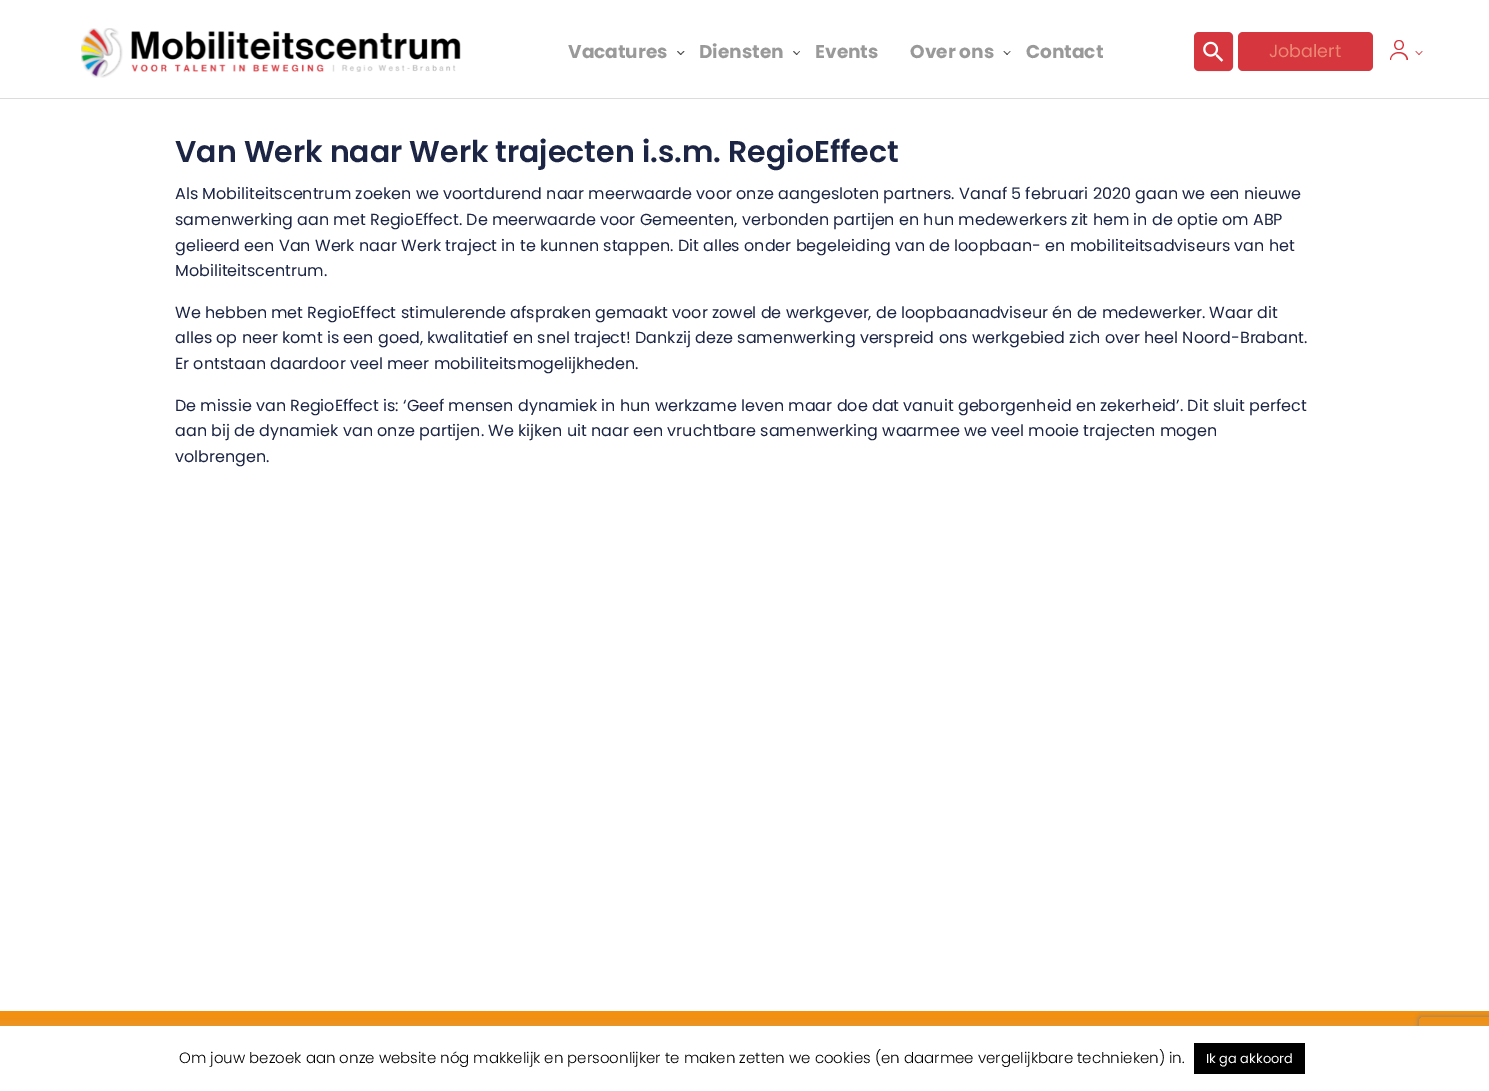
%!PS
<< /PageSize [1489 1091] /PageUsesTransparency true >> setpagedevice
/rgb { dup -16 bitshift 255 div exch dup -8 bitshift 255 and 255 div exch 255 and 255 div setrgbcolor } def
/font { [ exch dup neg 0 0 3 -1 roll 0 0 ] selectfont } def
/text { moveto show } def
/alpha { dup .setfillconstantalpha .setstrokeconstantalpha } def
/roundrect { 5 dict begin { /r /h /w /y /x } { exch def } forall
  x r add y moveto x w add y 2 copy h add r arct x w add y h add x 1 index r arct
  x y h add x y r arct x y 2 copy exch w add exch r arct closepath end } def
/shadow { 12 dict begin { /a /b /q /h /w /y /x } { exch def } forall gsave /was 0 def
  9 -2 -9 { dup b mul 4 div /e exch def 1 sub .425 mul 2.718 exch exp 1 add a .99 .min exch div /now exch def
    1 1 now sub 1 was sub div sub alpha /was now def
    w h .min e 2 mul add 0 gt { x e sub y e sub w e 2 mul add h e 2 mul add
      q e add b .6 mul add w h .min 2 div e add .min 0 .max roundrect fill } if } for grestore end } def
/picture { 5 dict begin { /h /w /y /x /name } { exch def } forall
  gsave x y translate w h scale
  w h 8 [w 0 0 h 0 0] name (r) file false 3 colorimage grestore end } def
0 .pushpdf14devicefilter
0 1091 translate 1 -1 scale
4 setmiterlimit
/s1 { /Poppins-Bold 18.5 font 16#999999 rgb } def
/s2 { /Poppins-Regular 17.5 font 16#EB8873 rgb } def
/s3 { /Poppins-SemiBold 30 font 16#1C2544 rgb } def
/s4 { /Poppins-Regular 16 font 16#1C2544 rgb } def
/s5 { /Poppins-Light 15 font 16#000000 rgb } def
/s6 { /Poppins-Regular 13 font 16#FFFFFF rgb } def
16#FFFFFF rgb
0 0 1489 1091 rectfill
16#DCDCDC rgb
0 98 1489 1 rectfill
(pic1.raw) 81 28 380 50 picture
s1
(Vacatures) 568 58 text
16#4E4E4E rgb
683.5 51 moveto 684.5 51.5 lineto 680.5 55 lineto 680 54.5 lineto closepath fill
678 51 moveto 681.5 54.5 lineto 680.5 55 lineto 677 51.5 lineto closepath fill
s1
(Diensten) 699 58 text
16#4E4E4E rgb
799.5 51 moveto 800 51.5 lineto 796.5 55 lineto 796 54.5 lineto closepath fill
794 51 moveto 797.5 54.5 lineto 796.5 55 lineto 793 51.5 lineto closepath fill
s1
(Events) 815 58 text
(Over ons) 910 58 text
16#4E4E4E rgb
1010 51 moveto 1010.5 51.5 lineto 1007 55 lineto 1006.5 54.5 lineto closepath fill
1004 51 moveto 1008 54.5 lineto 1007 55 lineto 1003.5 51.5 lineto closepath fill
s1
(Contact) 1026 58 text
16#CACACA rgb
1194.5 32.5 38 38 4.5 roundrect stroke
16#D6363D rgb
1194 32 39 39 5 roundrect fill
(pic2.raw) 1203 41 21 21 picture
1238 32 135 39 5 roundrect fill
s2
(Jobalert) 1269 57 text
16#D6363D rgb
1399 52 moveto 1404 52 1408 55.5 1408 60 curveto 1406.5 60 lineto 1406.5 51 1391 51 1391 60 curveto 1390 60 lineto 1390 55.5 1394 52 1399 52 curveto closepath 1399 40 moveto 1405.5 40 1405.5 50 1399 50 curveto 1392.5 50 1392.5 40 1399 40 curveto closepath 1399 41 moveto 1394 41 1394 49 1399 49 curveto 1404 49 1404 41 1399 41 curveto closepath eofill
1422 51 moveto 1422.5 51.5 lineto 1419 55 lineto 1418.5 54.5 lineto closepath fill
1416 51 moveto 1419.5 54.5 lineto 1419 55 lineto 1415.5 51.5 lineto closepath fill
s3
(Van Werk naar Werk trajecten i.s.m. RegioEffect) 175 162 text
s4
(Als Mobiliteitscentrum zoeken we voortdurend naar meerwaarde voor onze aangesloten partners. Vanaf 5 februari 2020 gaan we een nieuwe) 175 199 text
(samenwerking aan met RegioEffect. De meerwaarde voor Gemeenten, verbonden partijen en hun medewerkers zit hem in de optie om ABP) 175 225 text
(gelieerd een Van Werk naar Werk traject in te kunnen stappen. Dit alles onder begeleiding van de loopbaan- en mobiliteitsadviseurs van het) 175 251 text
(Mobiliteitscentrum.) 175 276 text
(We hebben met RegioEffect stimulerende afspraken gemaakt voor zowel de werkgever, de loopbaanadviseur én de medewerker. Waar dit) 175 318 text
(alles op neer komt is een goed, kwalitatief en snel traject! Dankzij deze samenwerking verspreid ons werkgebied zich over heel Noord-Brabant.) 175 343 text
(Er ontstaan daardoor veel meer mobiliteitsmogelijkheden.) 175 369 text
(De missie van RegioEffect is: ‘Geef mensen dynamiek in hun werkzame leven maar doe dat vanuit geborgenheid en zekerheid’. Dit sluit perfect) 175 411 text
(aan bij de dynamiek van onze partijen. We kijken uit naar een vruchtbare samenwerking waarmee we veel mooie trajecten mogen) 175 436 text
(volbrengen.) 175 462 text
16#F3900F rgb
0 1011 1489 15 rectfill
16#ACABAB rgb
0 1025 1489 65 0 5 0.3 shadow
gsave
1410 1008 moveto 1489 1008 lineto 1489 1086 lineto 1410 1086 lineto closepath 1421 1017 moveto 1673 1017 lineto 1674 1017 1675 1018 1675 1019 curveto 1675 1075 lineto 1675 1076 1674 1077 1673 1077 curveto 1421 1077 lineto 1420 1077 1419 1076 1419 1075 curveto 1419 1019 lineto 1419 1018 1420 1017 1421 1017 curveto closepath eoclip newpath
16#808080 rgb
1419 1017 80 60 2 2.5 1 shadow
grestore
16#FFFFFF rgb
0 1026 1489 65 rectfill
s5
(Om jouw bezoek aan onze website nóg makkelijk en persoonlijker te maken zetten we cookies \(en daarmee vergelijkbare technieken\) in.) 179 1063 text
1194 1043 111 31 rectfill
s6
(Ik ga akkoord) 1206 1063 text
.poppdf14devicefilter showpage
